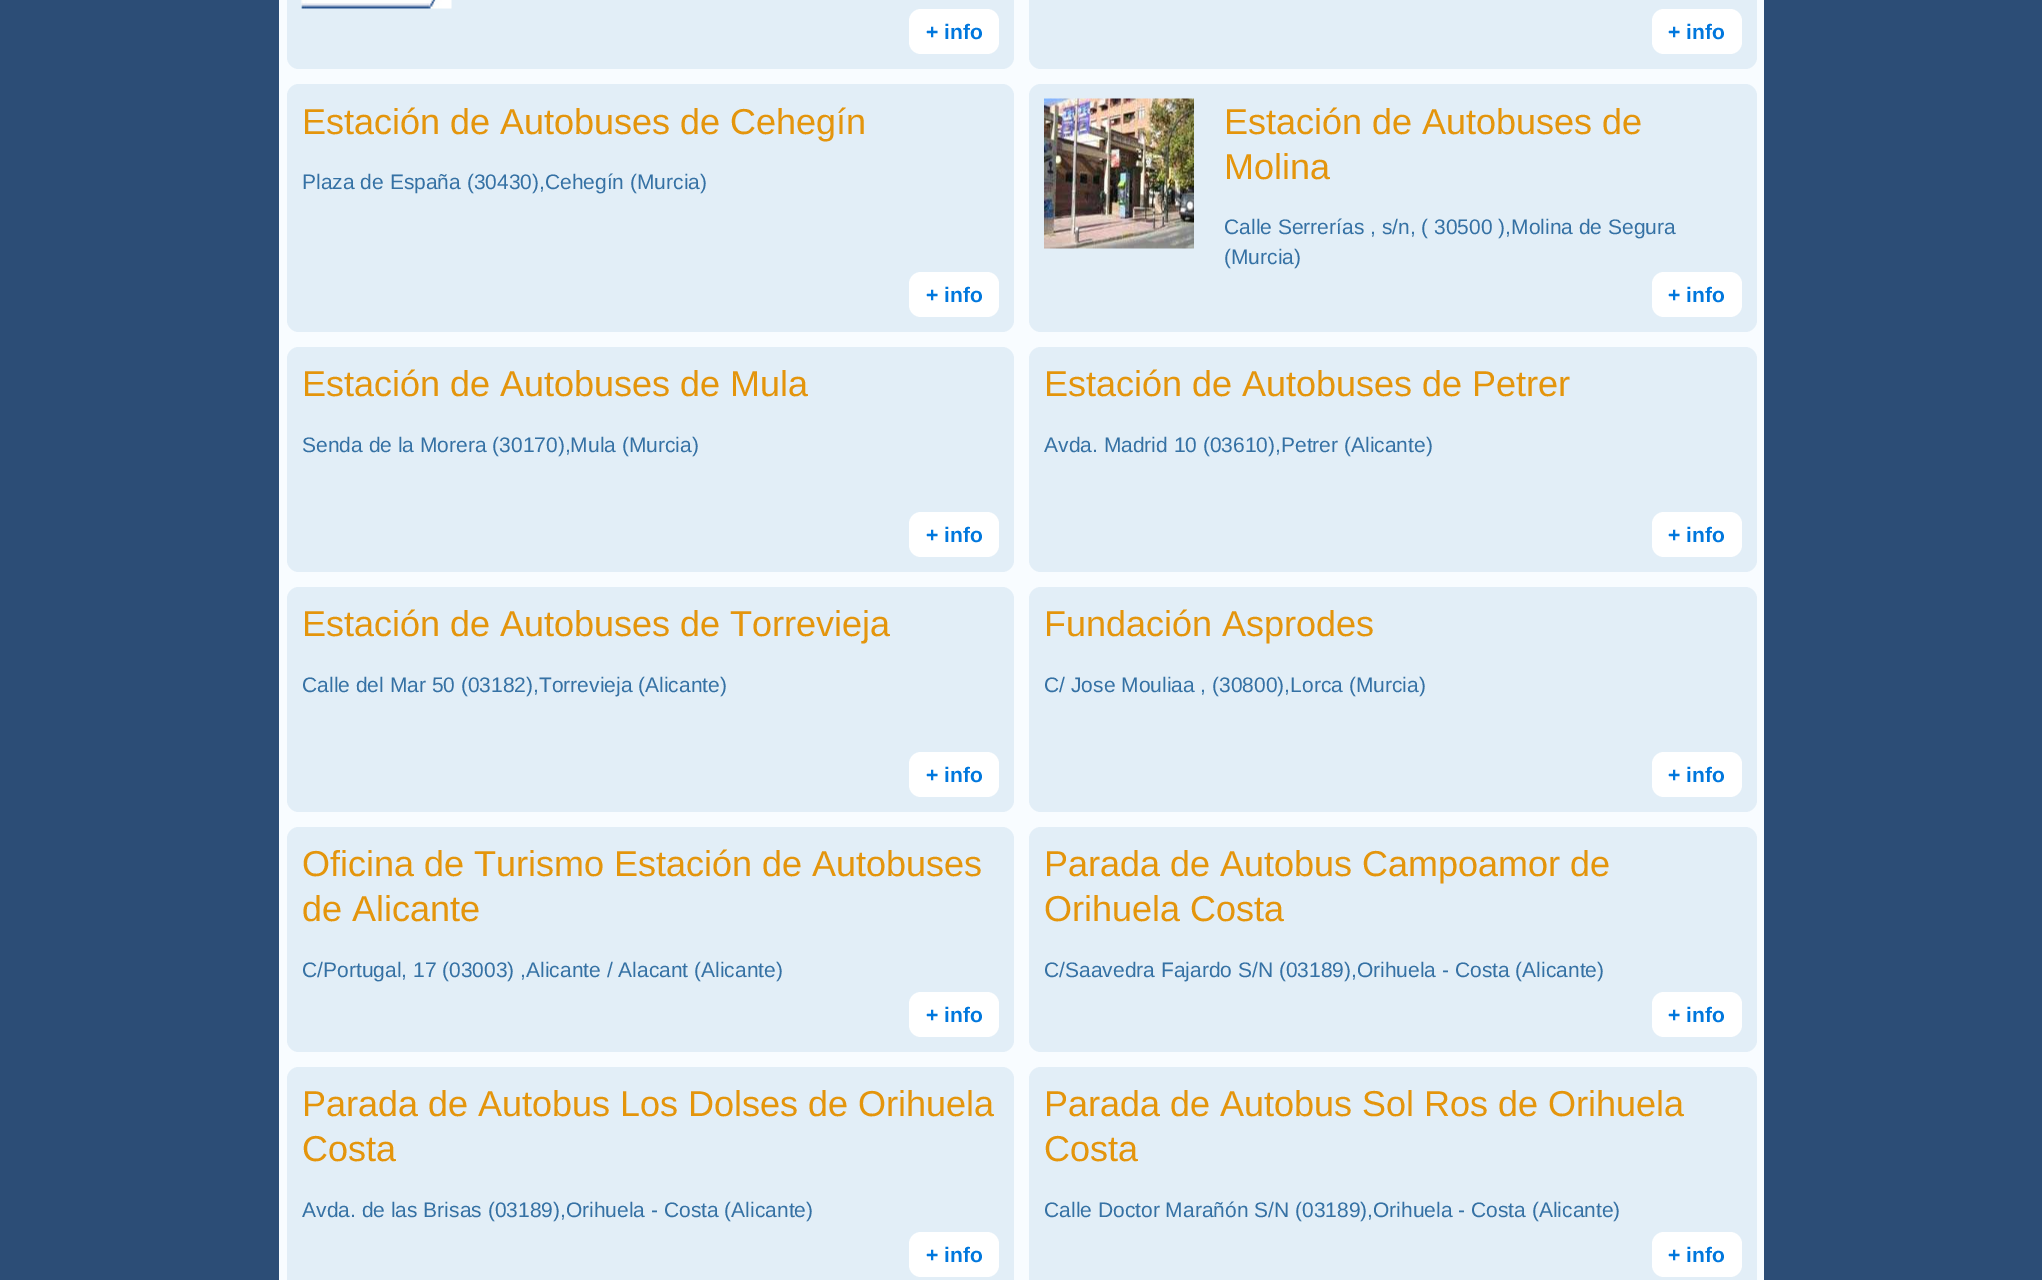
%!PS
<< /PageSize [2042 1280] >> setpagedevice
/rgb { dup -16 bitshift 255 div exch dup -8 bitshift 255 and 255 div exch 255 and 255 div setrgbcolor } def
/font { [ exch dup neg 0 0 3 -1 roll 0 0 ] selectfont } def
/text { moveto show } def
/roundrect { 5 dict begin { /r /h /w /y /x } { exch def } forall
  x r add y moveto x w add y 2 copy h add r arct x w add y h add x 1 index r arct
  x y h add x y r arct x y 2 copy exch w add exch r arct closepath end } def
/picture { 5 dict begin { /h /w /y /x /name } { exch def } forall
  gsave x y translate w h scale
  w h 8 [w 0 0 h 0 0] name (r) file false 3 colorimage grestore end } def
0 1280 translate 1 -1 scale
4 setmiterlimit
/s1 { /LiberationSans-Bold 21 font 16#0077DD rgb } def
/s2 { /LiberationSans-Regular 36 font 16#E4950C rgb } def
/s3 { /LiberationSans-Regular 21 font 16#3571A4 rgb } def
16#2C4D76 rgb
0 0 2042 1280 rectfill
16#F8FCFF rgb
279 0 1485 1280 rectfill
16#E2EEF7 rgb
287 -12 727 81 12 roundrect fill
(pic1.raw) 301 0 151 9 picture
16#FFFFFF rgb
909 9 90 45 12 roundrect fill
s1
(+ info) 926 39 text
16#E2EEF7 rgb
1029 -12 728 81 12 roundrect fill
16#FFFFFF rgb
1652 9 90 45 12 roundrect fill
s1
(+ info) 1668 39 text
16#E2EEF7 rgb
287 84 727 248 12 roundrect fill
s2
(Estación de Autobuses de Cehegín) 302 134 text
s3
(Plaza de España \(30430\),Cehegín \(Murcia\)) 302 189 text
16#FFFFFF rgb
909 272 90 45 12 roundrect fill
s1
(+ info) 926 302 text
16#E2EEF7 rgb
1029 84 728 248 12 roundrect fill
(pic2.raw) 1044 98 150 151 picture
s2
(Estación de Autobuses de) 1224 134 text
(Molina) 1224 179 text
s3
(Calle Serrerías , s/n, \( 30500 \),Molina de Segura) 1224 234 text
(\(Murcia\)) 1224 264 text
16#FFFFFF rgb
1652 272 90 45 12 roundrect fill
s1
(+ info) 1668 302 text
16#E2EEF7 rgb
287 347 727 225 12 roundrect fill
s2
(Estación de Autobuses de Mula) 302 396 text
s3
(Senda de la Morera \(30170\),Mula \(Murcia\)) 302 452 text
16#FFFFFF rgb
909 512 90 45 12 roundrect fill
s1
(+ info) 926 542 text
16#E2EEF7 rgb
1029 347 728 225 12 roundrect fill
s2
(Estación de Autobuses de Petrer) 1044 396 text
s3
(Avda. Madrid 10 \(03610\),Petrer \(Alicante\)) 1044 452 text
16#FFFFFF rgb
1652 512 90 45 12 roundrect fill
s1
(+ info) 1668 542 text
16#E2EEF7 rgb
287 587 727 225 12 roundrect fill
s2
(Estación de Autobuses de Torrevieja) 302 636 text
s3
(Calle del Mar 50 \(03182\),Torrevieja \(Alicante\)) 302 692 text
16#FFFFFF rgb
909 752 90 45 12 roundrect fill
s1
(+ info) 926 782 text
16#E2EEF7 rgb
1029 587 728 225 12 roundrect fill
s2
(Fundación Asprodes) 1044 636 text
s3
(C/ Jose Mouliaa , \(30800\),Lorca \(Murcia\)) 1044 692 text
16#FFFFFF rgb
1652 752 90 45 12 roundrect fill
s1
(+ info) 1668 782 text
16#E2EEF7 rgb
287 827 727 225 12 roundrect fill
s2
(Oficina de Turismo Estación de Autobuses) 302 876 text
(de Alicante) 302 921 text
s3
(C/Portugal, 17 \(03003\) ,Alicante / Alacant \(Alicante\)) 302 977 text
16#FFFFFF rgb
909 992 90 45 12 roundrect fill
s1
(+ info) 926 1022 text
16#E2EEF7 rgb
1029 827 728 225 12 roundrect fill
s2
(Parada de Autobus Campoamor de) 1044 876 text
(Orihuela Costa) 1044 921 text
s3
(C/Saavedra Fajardo S/N \(03189\),Orihuela - Costa \(Alicante\)) 1044 977 text
16#FFFFFF rgb
1652 992 90 45 12 roundrect fill
s1
(+ info) 1668 1022 text
16#E2EEF7 rgb
287 1067 727 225 12 roundrect fill
s2
(Parada de Autobus Los Dolses de Orihuela) 302 1116 text
(Costa) 302 1161 text
s3
(Avda. de las Brisas \(03189\),Orihuela - Costa \(Alicante\)) 302 1217 text
16#FFFFFF rgb
909 1232 90 45 12 roundrect fill
s1
(+ info) 926 1262 text
16#E2EEF7 rgb
1029 1067 728 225 12 roundrect fill
s2
(Parada de Autobus Sol Ros de Orihuela) 1044 1116 text
(Costa) 1044 1161 text
s3
(Calle Doctor Marañón S/N \(03189\),Orihuela - Costa \(Alicante\)) 1044 1217 text
16#FFFFFF rgb
1652 1232 90 45 12 roundrect fill
s1
(+ info) 1668 1262 text
showpage
